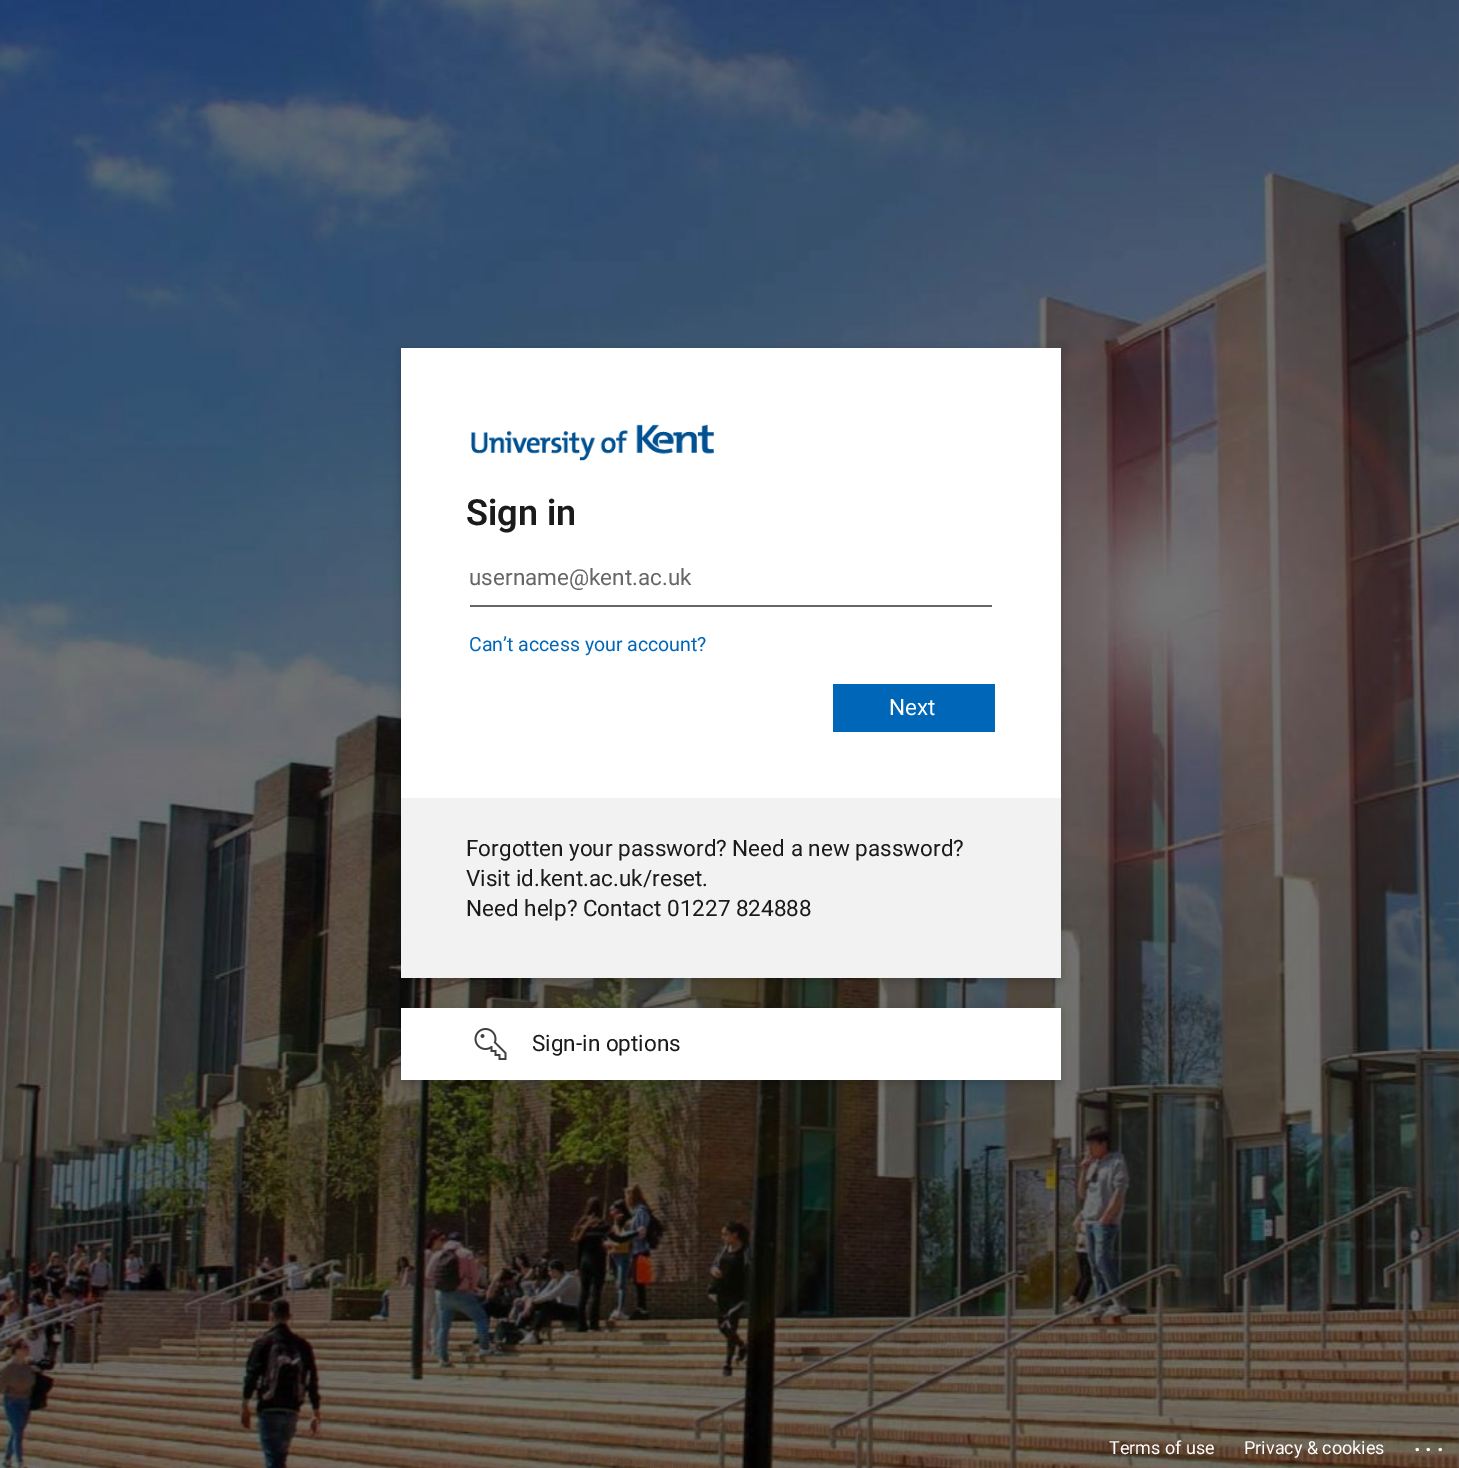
%!PS
<< /PageSize [1459 1468] /PageUsesTransparency true >> setpagedevice
/rgb { dup -16 bitshift 255 div exch dup -8 bitshift 255 and 255 div exch 255 and 255 div setrgbcolor } def
/font { [ exch dup neg 0 0 3 -1 roll 0 0 ] selectfont } def
/text { moveto show } def
/alpha { dup .setfillconstantalpha .setstrokeconstantalpha } def
/roundrect { 5 dict begin { /r /h /w /y /x } { exch def } forall
  x r add y moveto x w add y 2 copy h add r arct x w add y h add x 1 index r arct
  x y h add x y r arct x y 2 copy exch w add exch r arct closepath end } def
/shadow { 12 dict begin { /a /b /q /h /w /y /x } { exch def } forall gsave /was 0 def
  9 -2 -9 { dup b mul 4 div /e exch def 1 sub .425 mul 2.718 exch exp 1 add a .99 .min exch div /now exch def
    1 1 now sub 1 was sub div sub alpha /was now def
    w h .min e 2 mul add 0 gt { x e sub y e sub w e 2 mul add h e 2 mul add
      q e add b .6 mul add w h .min 2 div e add .min 0 .max roundrect fill } if } for grestore end } def
/picture { 5 dict begin { /h /w /y /x /name } { exch def } forall
  gsave x y translate w h scale
  w h 8 [w 0 0 h 0 0] name (r) file false 3 colorimage grestore end } def
0 .pushpdf14devicefilter
0 1468 translate 1 -1 scale
4 setmiterlimit
/s1 { /Roboto-SemiBold 36 font 16#1B1B1B rgb } def
/s2 { /Roboto-Regular 22.5 font 16#666666 rgb } def
/s3 { /Roboto-Regular 19.5 font 16#0067B8 rgb } def
/s4 { /Roboto-Regular 22.5 font 16#FFFFFF rgb } def
/s5 { /Roboto-Regular 22.5 font 16#1B1B1B rgb } def
/s6 { /Roboto-Regular 18 font 16#FFFFFF rgb } def
16#FFFFFF rgb
0 0 1459 1468 rectfill
(pic1.raw) 0 0 1459 1468 picture
16#000000 rgb
401 351 660 630 0 4.5 0.2 shadow
16#FFFFFF rgb
401 348 660 450 rectfill
(pic2.raw) 471 424 243 37 picture
s1
(Sign in) 466 525 text
16#666666 rgb
470 605 522 2 rectfill
s2
(username@kent.ac.uk) 469 585 text
s3
(Can’t access your account?) 469 651 text
833 684 162 48 rectfill
s4
(Next) 889 715 text
16#F2F2F2 rgb
401 798 660 180 rectfill
s5
(Forgotten your password? Need a new password?) 466 856 text
(Visit id.kent.ac.uk/reset.) 466 886 text
(Need help? Contact 01227 824888) 466 916 text
16#000000 rgb
401 1011 660 72 0 4.5 0.2 shadow
16#FFFFFF rgb
401 1008 660 72 rectfill
(pic3.raw) 474 1028 33 32 picture
s5
(Sign-in options) 532 1051 text
s6
(Terms of use) 1109 1454 text
(Privacy & cookies) 1244 1454 text
/Roboto-SemiBold 24 font
1414 1451 moveto 4.5 0 (...) ashow
.poppdf14devicefilter showpage
